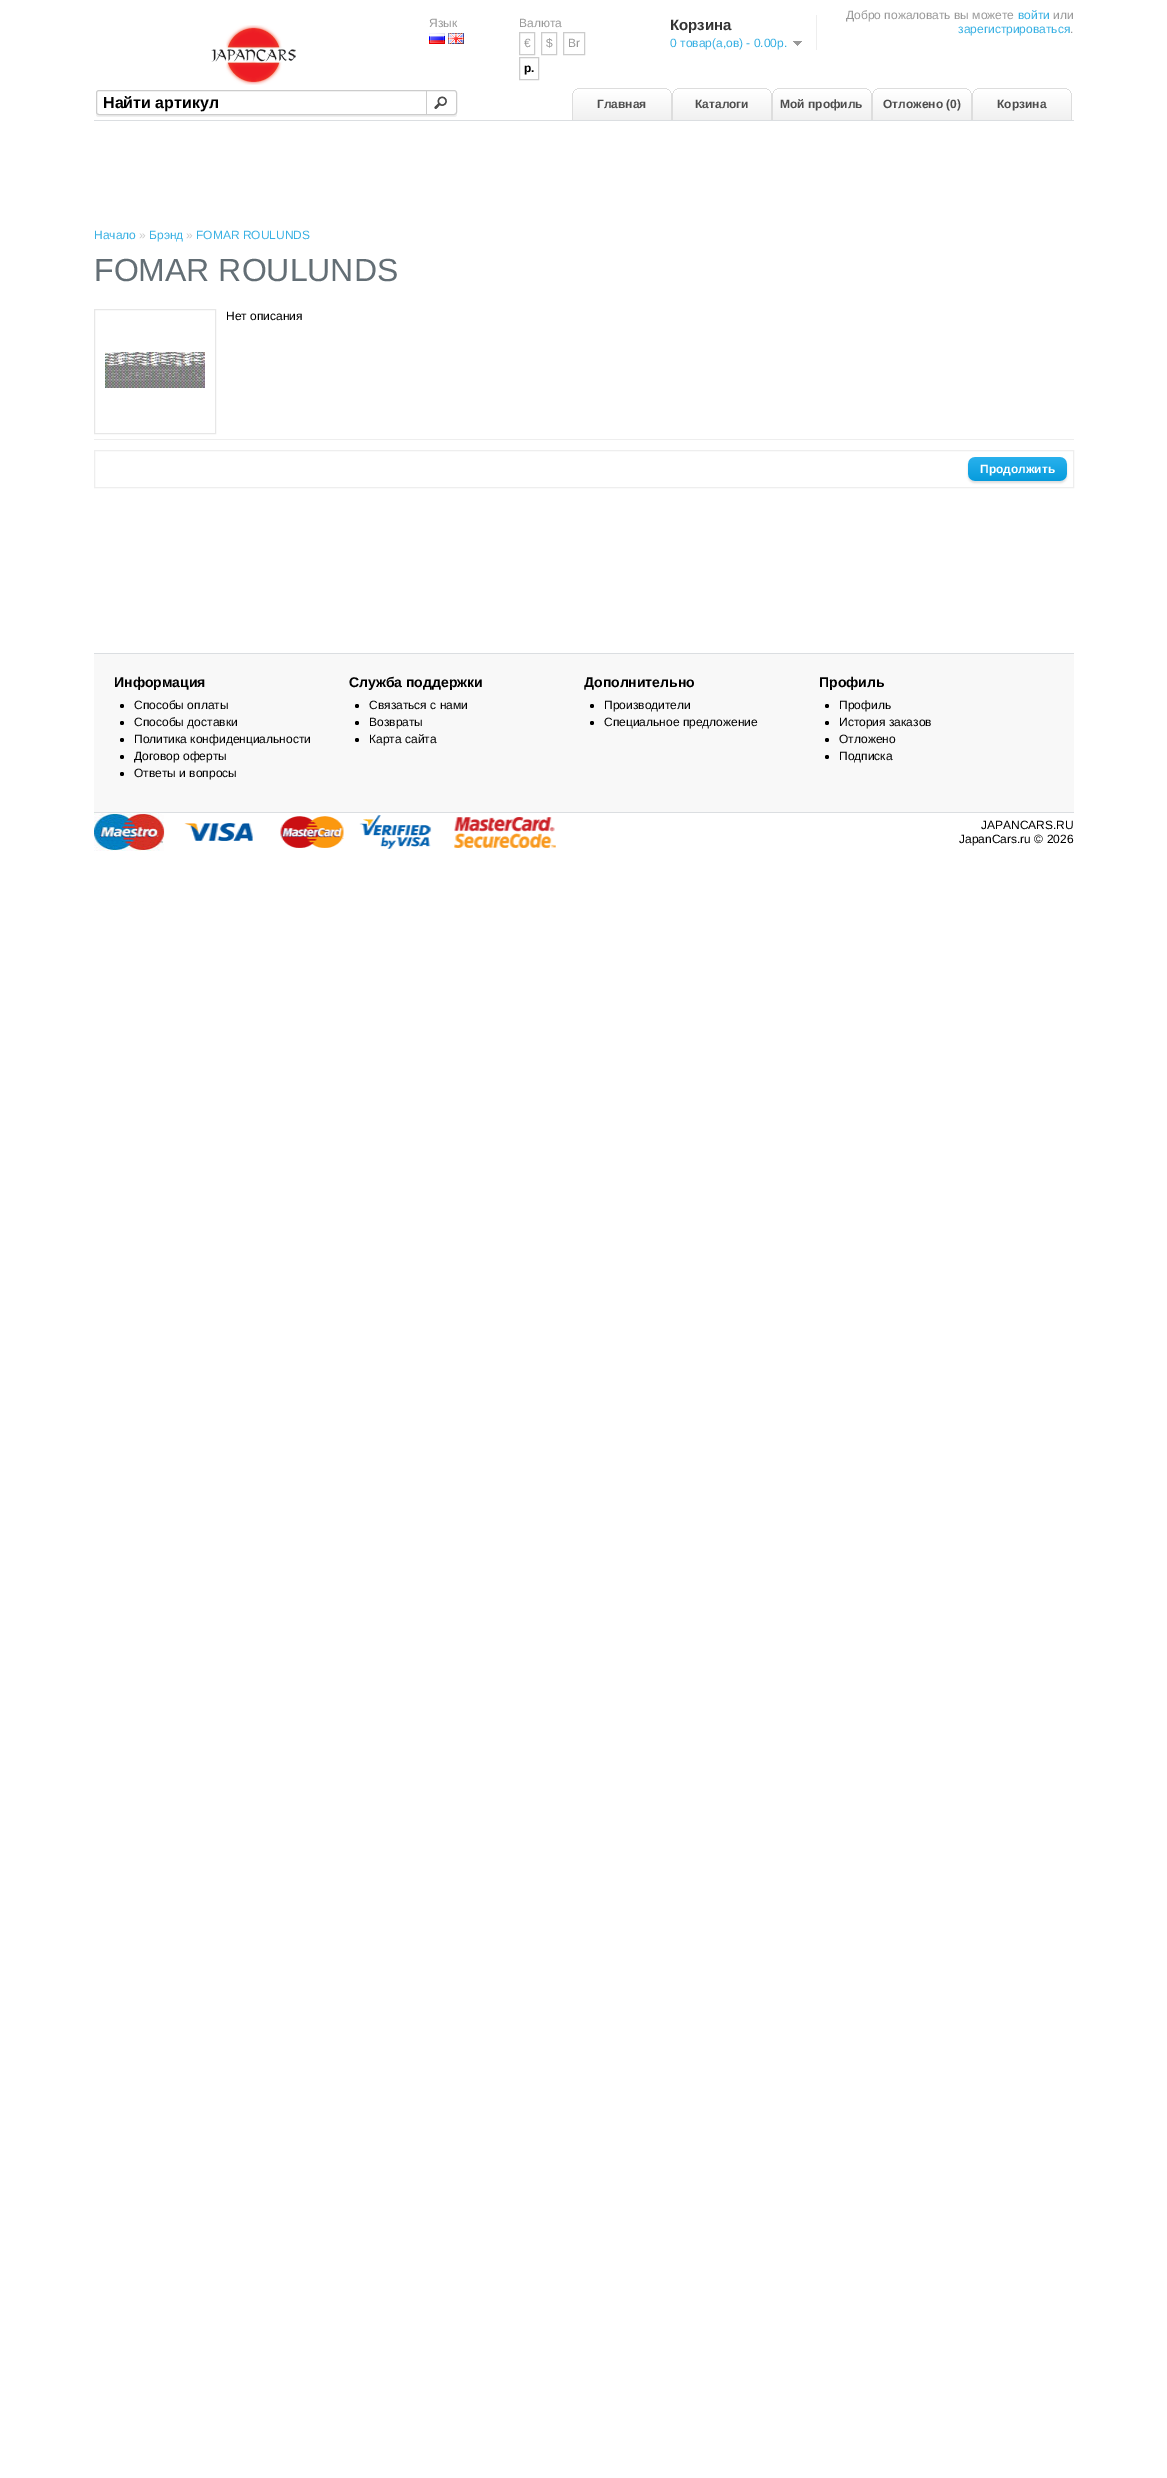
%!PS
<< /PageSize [1167 2478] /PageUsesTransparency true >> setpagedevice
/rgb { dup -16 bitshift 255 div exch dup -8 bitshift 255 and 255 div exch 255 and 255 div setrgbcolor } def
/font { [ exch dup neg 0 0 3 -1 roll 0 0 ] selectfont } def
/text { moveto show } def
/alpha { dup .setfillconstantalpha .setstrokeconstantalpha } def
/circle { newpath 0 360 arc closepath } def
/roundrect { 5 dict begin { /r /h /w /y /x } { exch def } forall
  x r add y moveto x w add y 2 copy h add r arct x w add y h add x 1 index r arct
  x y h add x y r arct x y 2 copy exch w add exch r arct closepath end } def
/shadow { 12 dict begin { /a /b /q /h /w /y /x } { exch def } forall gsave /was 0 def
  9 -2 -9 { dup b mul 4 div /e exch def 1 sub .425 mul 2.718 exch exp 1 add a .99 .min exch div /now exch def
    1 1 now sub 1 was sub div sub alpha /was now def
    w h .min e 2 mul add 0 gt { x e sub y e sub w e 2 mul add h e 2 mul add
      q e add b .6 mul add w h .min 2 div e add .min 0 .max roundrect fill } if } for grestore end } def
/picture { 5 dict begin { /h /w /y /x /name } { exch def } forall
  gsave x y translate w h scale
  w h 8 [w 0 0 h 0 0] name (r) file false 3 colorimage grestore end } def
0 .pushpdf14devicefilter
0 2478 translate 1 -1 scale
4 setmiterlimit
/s1 { /LiberationSans-Regular 12 font 16#999999 rgb } def
/s2 { /LiberationSans-Bold 12 font 16#000000 rgb } def
/s3 { /LiberationSans-Bold 15 font 16#333333 rgb } def
/s4 { /LiberationSans-Regular 12 font 16#38B0E3 rgb } def
/s5 { /LiberationSans-Bold 16 font 16#000000 rgb } def
/s6 { /LiberationSans-Bold 12 font 16#4D4D4D rgb } def
/s7 { /LiberationSans-Regular 12 font 16#CCCCCC rgb } def
/s8 { /LiberationSans-Regular 32 font 16#636E75 rgb } def
/s9 { /LiberationSans-Regular 12 font 16#000000 rgb } def
/s10 { /LiberationSans-Bold 12 font 16#FFFFFF rgb } def
/s11 { /LiberationSans-Bold 14 font 16#000000 rgb } def
16#FFFFFF rgb
0 0 1167 2478 rectfill
16#DBDEE1 rgb
94 120 980 1 rectfill
(pic1.raw) 211 25 85 60 picture
s1
(Язык) 429 27 text
(pic2.raw) 429 33 16 11 picture
(pic3.raw) 448 33 16 11 picture
(Валюта) 519 27 text
16#CCCCCC rgb
519.5 32.5 15 22 rectstroke
s1
(€) 524 47 text
16#CCCCCC rgb
541.5 32.5 15 22 rectstroke
s1
($) 546 47 text
16#CCCCCC rgb
563.5 32.5 21 22 rectstroke
s1
(Br) 568 47 text
16#CCCCCC rgb
519.5 57.5 19 22 rectstroke
s2
(р.) 524 72 text
16#EEEEEE rgb
816 15 1 35 rectfill
s3
(Корзина) 670 30 text
s4
(0 товар\(а,ов\) - 0.00р.) 670 47 text
(pic4.raw) 793 41 9 5 picture
s1
(Добро пожаловать вы можете) 846 19 text
s4
(войти) 1018 19 text
s1
(или) 1053 19 text
s4
(зарегистрироваться) 958 33 text
s1
(.) 1070 33 text
16#F0F0F0 rgb
96 112 moveto 96 114 lineto 96 116 97 117 99 117 curveto 454 117 lineto 456 117 457 116 457 114 curveto 457 112 lineto 457 114 456 115 454 115 curveto 99 115 lineto 97 115 96 114 96 112 curveto closepath fill
16#CCCCCC rgb
96.5 90.5 360 24 2.5 roundrect stroke
s5
(Найти артикул) 103 108 text
(pic5.raw) 434 96 13 13 picture
16#CCCCCC rgb
426 90 1 24 rectfill
(pic6.raw) 572 88 100 32 picture
s6
(Главная) 597 108 text
(pic6.raw) 672 88 100 32 picture
(Каталоги) 695 108 text
(pic6.raw) 772 88 100 32 picture
(Мой профиль) 780 108 text
(pic6.raw) 872 88 100 32 picture
(Отложено \(0\)) 883 108 text
(pic6.raw) 972 88 100 32 picture
(Корзина) 997 108 text
s4
(Начало) 94 239 text
s7
(») 139 239 text
s4
(Брэнд) 149 239 text
s7
(») 186 239 text
s4
(FOMAR ROULUNDS) 196 239 text
s8
(FOMAR ROULUNDS) 94 281 text
16#EEEEEE rgb
94 439 980 1 rectfill
16#E7E7E7 rgb
94.5 309.5 121 124 rectstroke
(pic7.raw) 105 352 100 37 picture
s9
(Нет описания) 226 320 text
16#EEEEEE rgb
94.5 450.5 979 37 rectstroke
16#DDDDDD rgb
968 459 99 24 7 1 1 shadow
(pic8.raw) 968 457 99 24 picture
s10
(Продолжить) 980 473 text
16#F8F8F8 rgb
94 654 980 158 rectfill
16#DBDEE1 rgb
94 653 980 1 rectfill
94 812 980 1 rectfill
s11
(Информация) 114 687 text
122 706 2 circle fill
s9
(Способы оплаты) 134 709 text
122 723 2 circle fill
(Способы доставки) 134 726 text
122 740 2 circle fill
(Политика конфиденциальности) 134 743 text
122 757 2 circle fill
(Договор оферты) 134 760 text
122 774 2 circle fill
(Ответы и вопросы) 134 777 text
s11
(Служба поддержки) 349 687 text
357 706 2 circle fill
s9
(Связаться с нами) 369 709 text
357 723 2 circle fill
(Возвраты) 369 726 text
357 740 2 circle fill
(Карта сайта) 369 743 text
s11
(Дополнительно) 584 687 text
592 706 2 circle fill
s9
(Производители) 604 709 text
592 723 2 circle fill
(Специальное предложение) 604 726 text
s11
(Профиль) 819 687 text
827 706 2 circle fill
s9
(Профиль) 839 709 text
827 723 2 circle fill
(История заказов) 839 726 text
827 740 2 circle fill
(Отложено) 839 743 text
827 757 2 circle fill
(Подписка) 839 760 text
(pic9.raw) 94 813 462 38 picture
(JAPANCARS.RU) 981 829 text
(JapanCars.ru © 2026) 959 843 text
.poppdf14devicefilter showpage
